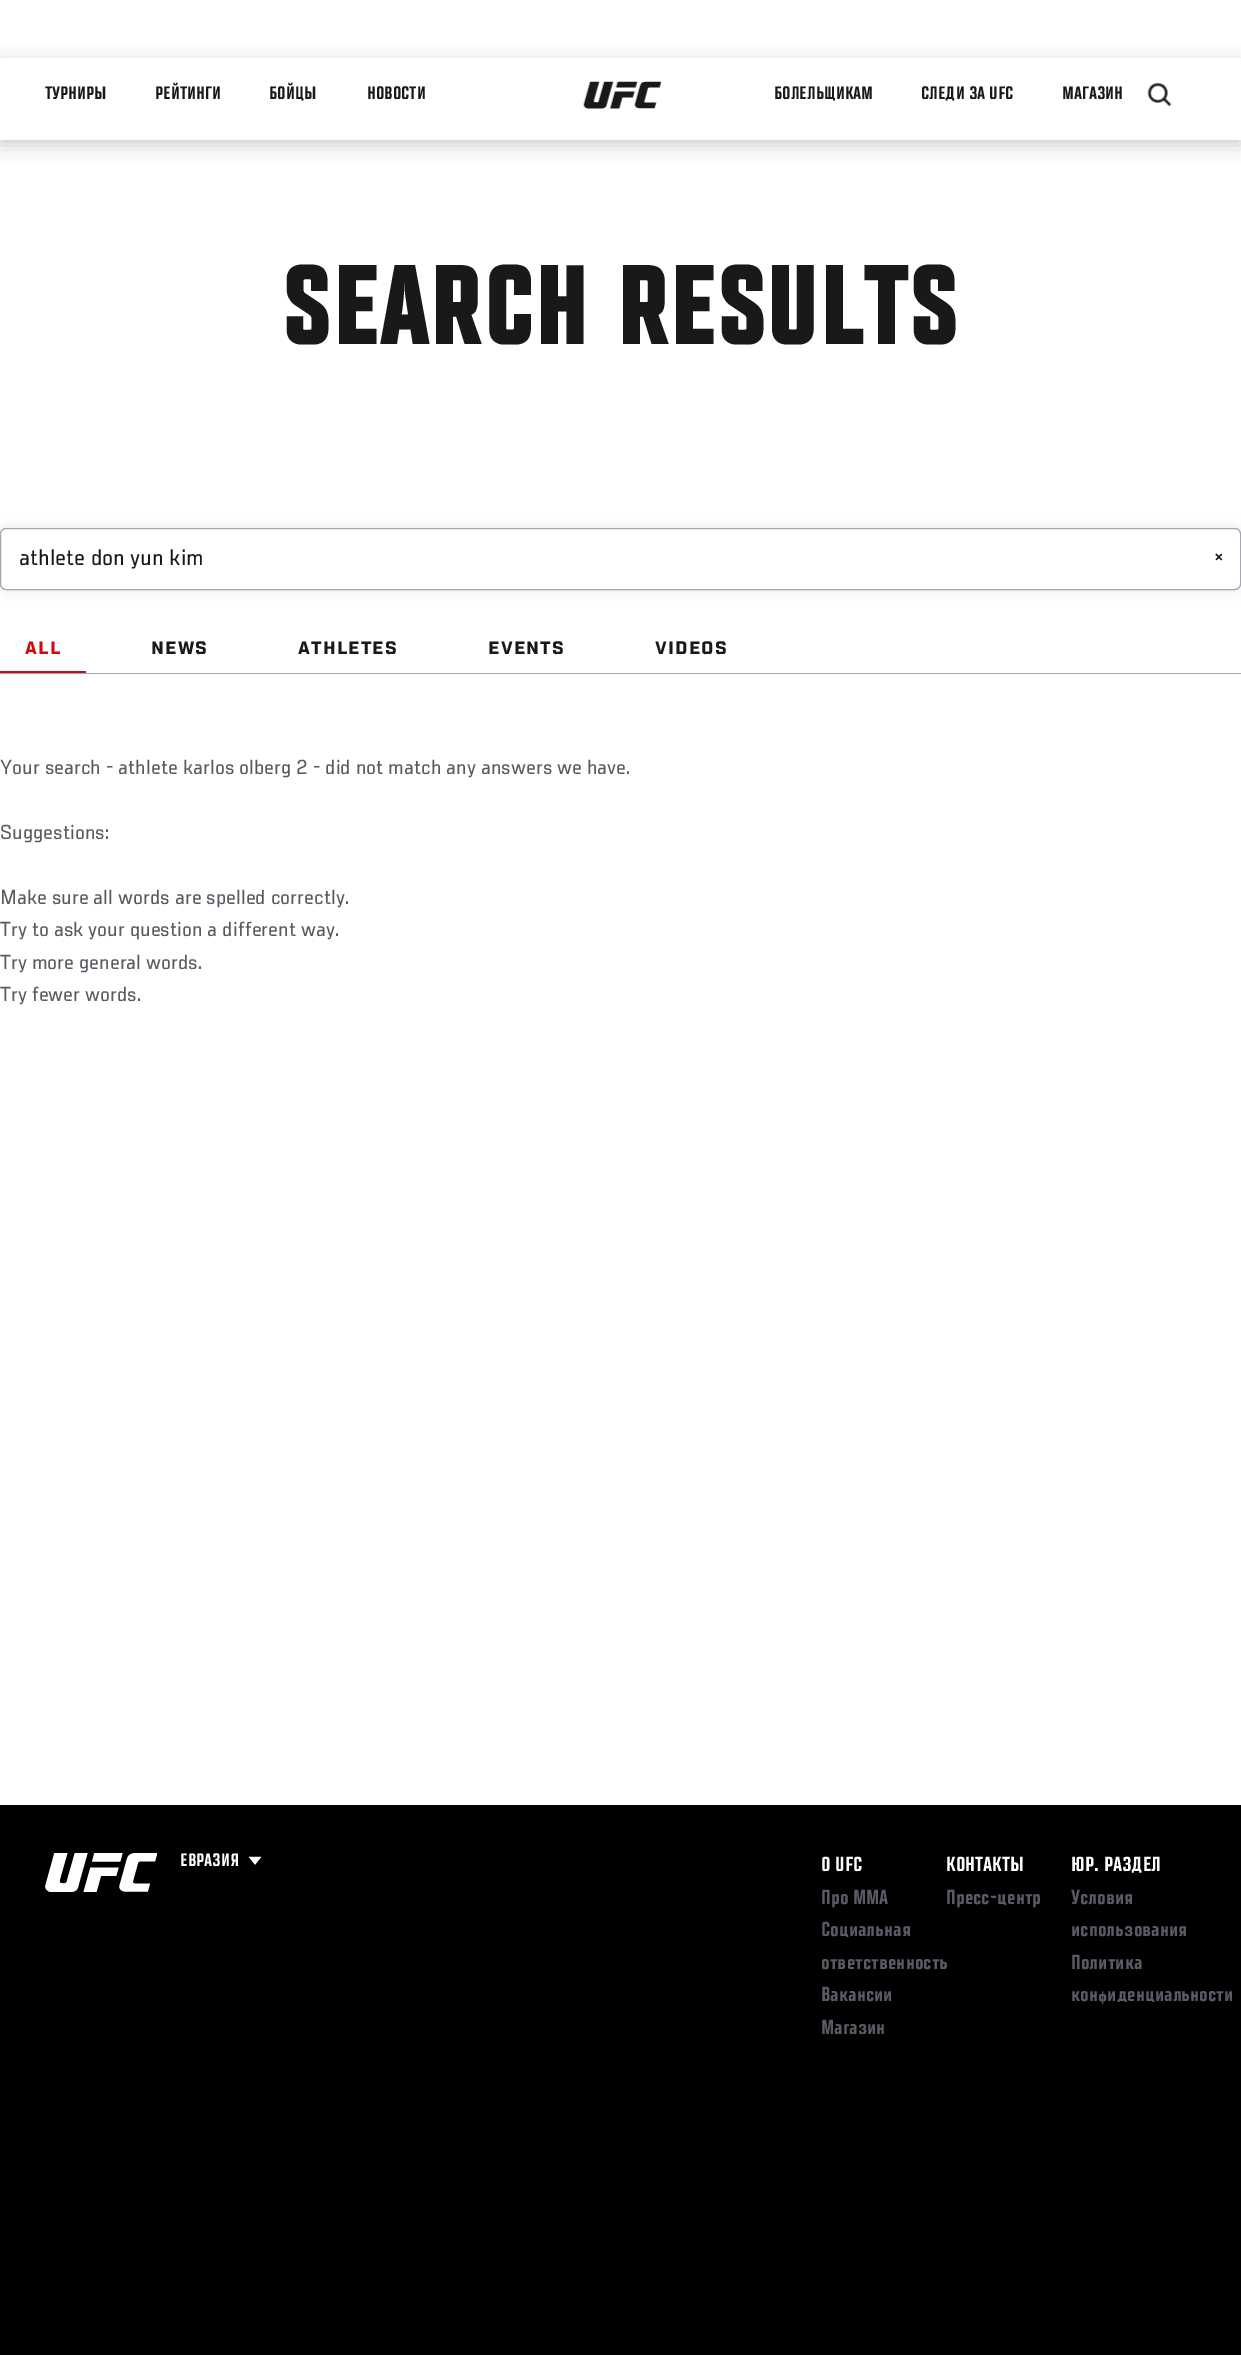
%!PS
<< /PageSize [1241 2355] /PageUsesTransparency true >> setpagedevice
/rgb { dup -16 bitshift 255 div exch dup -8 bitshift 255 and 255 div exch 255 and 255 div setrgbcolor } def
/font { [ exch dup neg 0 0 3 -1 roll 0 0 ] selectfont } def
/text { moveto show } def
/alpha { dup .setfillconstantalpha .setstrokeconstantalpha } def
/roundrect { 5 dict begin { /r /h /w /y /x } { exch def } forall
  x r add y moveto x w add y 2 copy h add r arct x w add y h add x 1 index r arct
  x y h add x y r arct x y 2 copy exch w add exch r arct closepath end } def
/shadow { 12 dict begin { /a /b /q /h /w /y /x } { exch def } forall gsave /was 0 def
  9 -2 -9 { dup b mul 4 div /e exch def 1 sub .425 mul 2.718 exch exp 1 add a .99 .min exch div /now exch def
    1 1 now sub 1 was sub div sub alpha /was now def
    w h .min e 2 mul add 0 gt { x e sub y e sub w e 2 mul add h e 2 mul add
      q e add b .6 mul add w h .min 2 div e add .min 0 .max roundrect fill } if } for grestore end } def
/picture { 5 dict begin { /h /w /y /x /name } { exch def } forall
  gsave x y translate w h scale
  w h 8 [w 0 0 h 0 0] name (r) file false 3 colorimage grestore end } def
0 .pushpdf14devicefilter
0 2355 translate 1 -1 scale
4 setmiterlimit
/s1 { /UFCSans-Medium 20 font 16#191919 rgb } def
/s2 { /UFCSans-Regular 25 font 16#191919 rgb } def
/s3 { /UFCSans-Regular 22.5 font 16#585B63 rgb } def
/s4 { /UFCSans-Medium 20 font 16#FFFFFF rgb } def
/s5 { /UFCSans-Medium 22.5 font 16#FFFFFF rgb } def
/s6 { /UFCSans-Medium 22.5 font 16#585B63 rgb } def
16#FFFFFF rgb
0 0 1241 2355 rectfill
gsave
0 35 moveto 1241 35 lineto 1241 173 lineto 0 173 lineto closepath 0 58 moveto 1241 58 lineto 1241 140 lineto 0 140 lineto closepath eoclip newpath
16#000000 rgb
0 63 1241 82 0 9 0.2 shadow
grestore
s1
(ТУРНИРЫ) 45 99 text
(РЕЙТИНГИ) 155 99 text
(БОЙЦЫ) 269 99 text
(НОВОСТИ) 367 99 text
(pic1.raw) 583 81 79 28 picture
(БОЛЕЛЬЩИКАМ) 774 99 text
(СЛЕДИ ЗА UFC) 921 99 text
(МАГАЗИН) 1062 99 text
(pic2.raw) 1147 82 25 25 picture
/UFCSans-Bold 120 font
282 344 moveto 2 0 (SEARCH RESULTS) ashow
16#000000 rgb
0 528 1241 62 6 6 0.1 shadow
16#FFFFFF rgb
0.5 528.5 1240 61 5.5 roundrect gsave fill grestore
16#A4A7AC rgb
stroke
s2
(athlete don yun kim) 19 565 text
(×) 1214 565 text
16#A4A7AC rgb
0 673 1241 1 rectfill
/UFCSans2-Bold 20 font
16#D20A0A rgb
25 654 moveto 1.25 0 (ALL) ashow
0 671 86 2 rectfill
16#191919 rgb
151 654 moveto 1.25 0 (NEWS) ashow
298 654 moveto 1.25 0 (ATHLETES) ashow
488 654 moveto 1.25 0 (EVENTS) ashow
655 654 moveto 1.25 0 (VIDEOS) ashow
s3
(Your search - athlete karlos olberg 2 - did not match any answers we have.) 0 774 text
(Suggestions:) 0 839 text
(Make sure all words are spelled correctly.) 0 904 text
(Try to ask your question a different way.) 0 936 text
(Try more general words.) 0 969 text
(Try fewer words.) 0 1001 text
16#000000 rgb
0 1805 1241 550 rectfill
(pic3.raw) 45 1853 113 39 picture
s4
(ЕВРАЗИЯ) 180 1866 text
(pic4.raw) 248 1856 14 9 picture
s5
(О UFC) 821 1871 text
s6
(Про ММА) 821 1904 text
(Социальная) 821 1936 text
(ответственность) 821 1969 text
(Вакансии) 821 2001 text
(Магазин) 821 2034 text
s5
(КОНТАКТЫ) 946 1871 text
s6
(Пресс-центр) 946 1904 text
s5
(ЮР. РАЗДЕЛ) 1071 1871 text
s6
(Условия) 1071 1904 text
(использования) 1071 1936 text
(Политика) 1071 1969 text
(конфиденциальности) 1071 2001 text
.poppdf14devicefilter showpage
